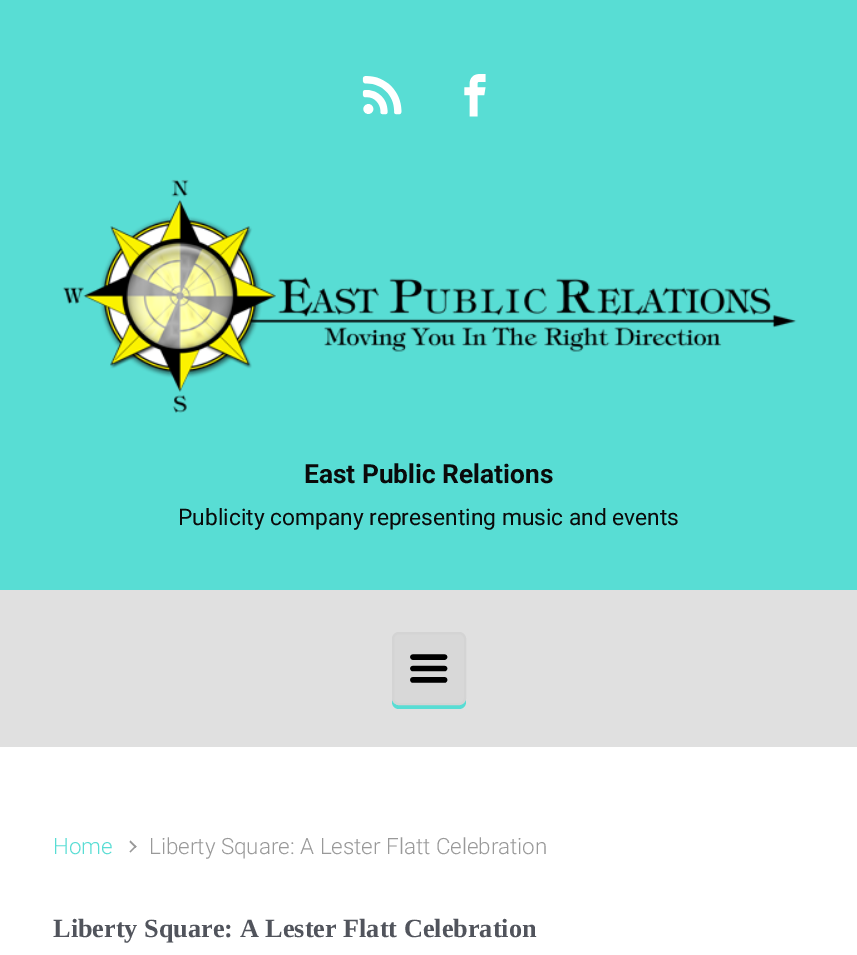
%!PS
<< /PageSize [857 955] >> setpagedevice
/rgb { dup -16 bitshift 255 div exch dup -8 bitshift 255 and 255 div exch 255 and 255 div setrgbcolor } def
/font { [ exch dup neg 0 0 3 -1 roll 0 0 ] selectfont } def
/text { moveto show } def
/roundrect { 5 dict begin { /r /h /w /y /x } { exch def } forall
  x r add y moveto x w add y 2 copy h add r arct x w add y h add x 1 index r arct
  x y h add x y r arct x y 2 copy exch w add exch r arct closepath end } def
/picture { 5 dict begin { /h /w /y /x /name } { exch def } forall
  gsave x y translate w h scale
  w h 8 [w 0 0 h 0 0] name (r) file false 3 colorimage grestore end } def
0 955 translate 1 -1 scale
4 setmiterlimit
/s1 { /Roboto-Bold 26.25 font 16#0A0A0A rgb } def
/s2 { /Roboto-Regular 22.75 font 16#0A0A0A rgb } def
/s3 { /Roboto-Light 22.4 font 16#58DDD4 rgb } def
/s4 { /Roboto-Light 22.4 font 16#999999 rgb } def
/s5 { /LiberationSerif-Bold 26.25 font 16#51545C rgb } def
16#58DDD4 rgb
0 0 857 955 rectfill
(pic1.raw) 362 76 40 39 picture
(pic2.raw) 464 74 22 43 picture
(pic3.raw) 62 179 735 234 picture
s1
(East Public Relations) 304 483 text
s2
(Publicity company representing music and events) 178 525 text
16#E0E0E0 rgb
0 590 857 157 rectfill
16#58DDD4 rgb
392 698 moveto 392 702 lineto 392 706 395 709 399 709 curveto 459 709 lineto 463 709 466 706 466 702 curveto 466 642 lineto 466 639 lineto 466 698 lineto 466 702 462 705 458 705 curveto 399 705 lineto 395 705 392 702 392 698 curveto closepath fill
16#D8D8D8 rgb
393 633 72 71 6 roundrect gsave fill grestore
16#D4D4D4 rgb
2 setlinewidth
stroke
(pic4.raw) 410 654 38 29 picture
16#FFFFFF rgb
0 747 857 208 rectfill
s3
(Home) 53 854 text
16#999999 rgb
129.5 842 moveto 130.5 840.5 lineto 136.5 846.5 lineto 135.5 848 lineto closepath fill
129.5 851.5 moveto 135.5 845.5 lineto 136.5 846.5 lineto 130.5 852.5 lineto closepath fill
(Liberty Square: A Lester Flatt Celebration) 149 854 text
s5
(Liberty Square: A Lester Flatt Celebration) 53 937 text
showpage
